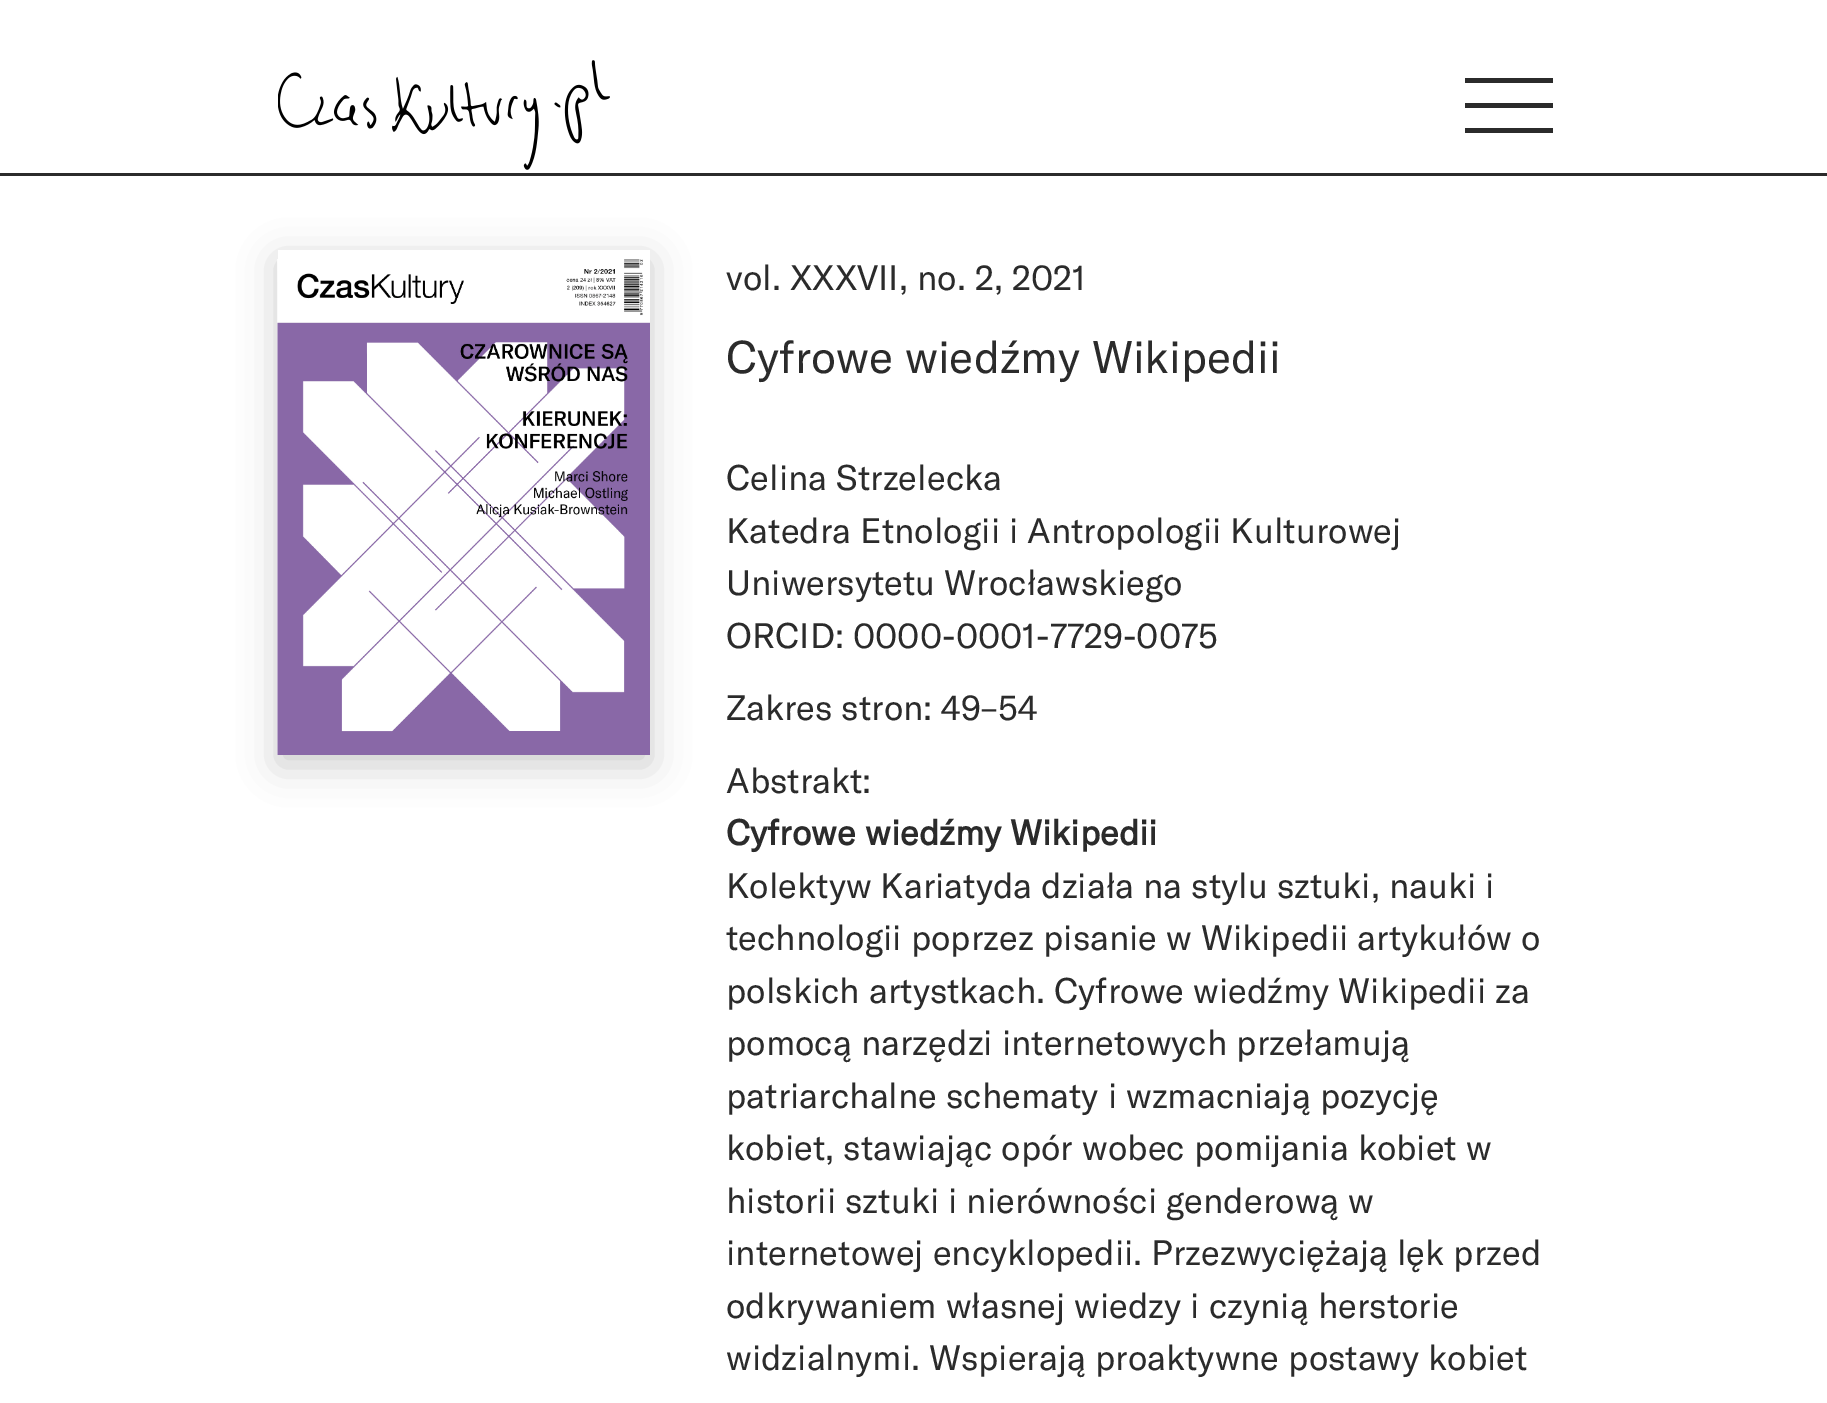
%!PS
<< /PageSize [1827 1403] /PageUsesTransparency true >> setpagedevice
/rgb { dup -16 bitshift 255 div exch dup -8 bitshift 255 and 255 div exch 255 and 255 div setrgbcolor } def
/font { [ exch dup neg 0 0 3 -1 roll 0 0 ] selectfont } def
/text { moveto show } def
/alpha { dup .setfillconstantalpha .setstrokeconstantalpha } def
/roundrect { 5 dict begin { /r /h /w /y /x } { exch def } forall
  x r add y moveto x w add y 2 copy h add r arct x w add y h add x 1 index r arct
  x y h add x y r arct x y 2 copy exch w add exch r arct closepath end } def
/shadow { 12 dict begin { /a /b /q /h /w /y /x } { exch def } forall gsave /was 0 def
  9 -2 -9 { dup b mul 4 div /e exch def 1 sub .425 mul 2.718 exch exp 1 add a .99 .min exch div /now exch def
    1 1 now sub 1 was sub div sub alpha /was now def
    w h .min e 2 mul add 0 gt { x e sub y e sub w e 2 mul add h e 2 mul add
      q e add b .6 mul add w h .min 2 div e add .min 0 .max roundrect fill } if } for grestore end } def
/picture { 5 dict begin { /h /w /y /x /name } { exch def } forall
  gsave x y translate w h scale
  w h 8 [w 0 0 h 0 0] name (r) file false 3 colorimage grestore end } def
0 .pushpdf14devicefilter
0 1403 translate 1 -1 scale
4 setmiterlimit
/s1 { /GTAmerica-Regular 35 font 16#2B2B2B rgb } def
/s2 { /GTAmerica-Regular 45 font 16#2B2B2B rgb } def
/s3 { /GTAmerica-Bold 35 font 16#2B2B2B rgb } def
16#FFFFFF rgb
0 0 1827 1403 rectfill
16#2B2B2B rgb
0 173 1827 3 rectfill
(pic1.raw) 278 60 332 110 picture
1465 78 88 5 rectfill
1465 103 88 5 rectfill
1465 128 88 5 rectfill
gsave
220 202 moveto 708 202 lineto 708 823 lineto 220 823 lineto closepath 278 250 moveto 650 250 lineto 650 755 lineto 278 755 lineto closepath eoclip newpath
16#000000 rgb
278 260 372 505 0 19 0.2 shadow
grestore
(pic2.raw) 277 259 373 496 picture
s1
(vol. XXXVII, no. 2, 2021) 726 290 text
s2
(Cyfrowe wiedźmy Wikipedii) 726 373 text
s1
(Celina Strzelecka) 726 490 text
(Katedra Etnologii i Antropologii Kulturowej) 726 543 text
(Uniwersytetu Wrocławskiego) 726 595 text
(ORCID: 0000-0001-7729-0075) 726 648 text
(Zakres stron: 49–54) 726 720 text
(Abstrakt:) 726 793 text
s3
(Cyfrowe wiedźmy Wikipedii) 726 845 text
s1
(Kolektyw Kariatyda działa na stylu sztuki, nauki i) 726 898 text
(technologii poprzez pisanie w Wikipedii artykułów o) 726 950 text
(polskich artystkach. Cyfrowe wiedźmy Wikipedii za) 726 1003 text
(pomocą narzędzi internetowych przełamują) 726 1055 text
(patriarchalne schematy i wzmacniają pozycję) 726 1108 text
(kobiet, stawiając opór wobec pomijania kobiet w) 726 1160 text
(historii sztuki i nierówności genderową w) 726 1213 text
(internetowej encyklopedii. Przezwyciężają lęk przed) 726 1265 text
(odkrywaniem własnej wiedzy i czynią herstorie) 726 1318 text
(widzialnymi. Wspierają proaktywne postawy kobiet) 726 1370 text
.poppdf14devicefilter showpage
